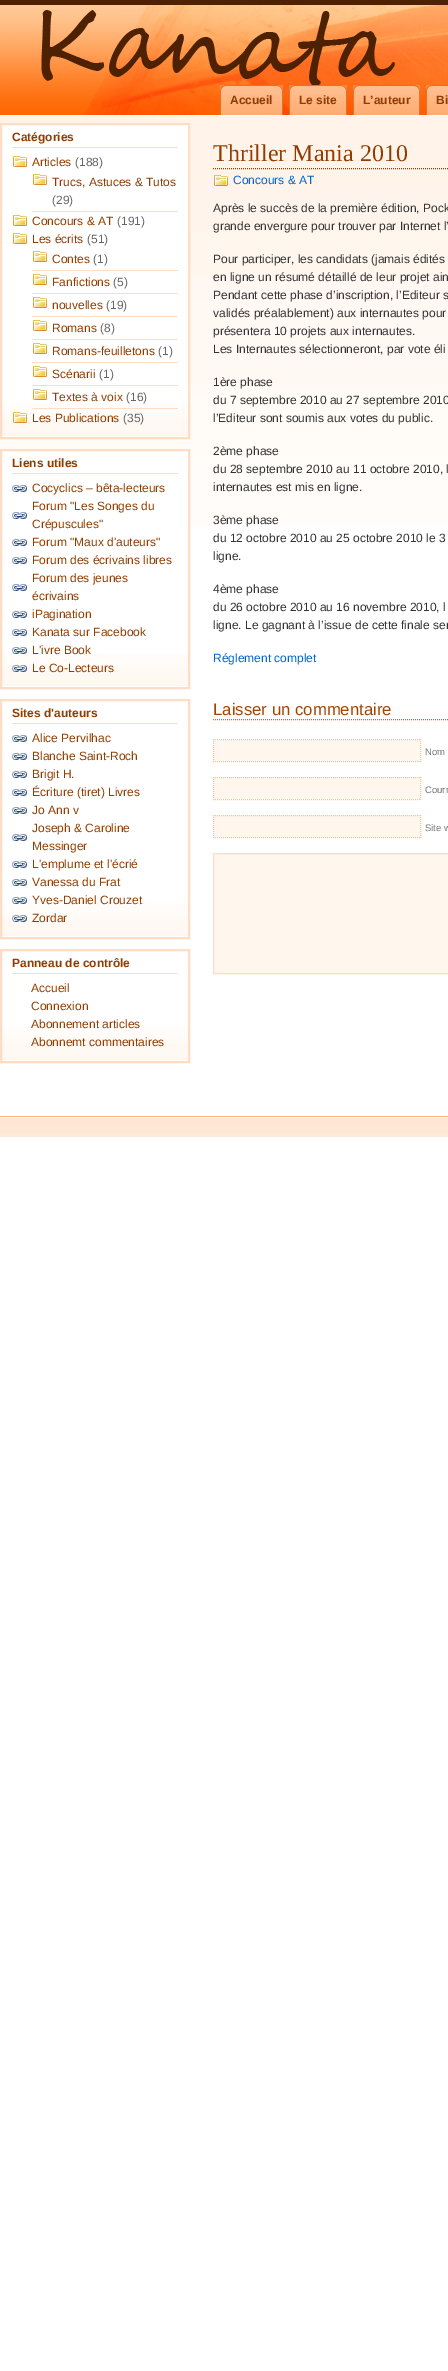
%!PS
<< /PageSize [448 2371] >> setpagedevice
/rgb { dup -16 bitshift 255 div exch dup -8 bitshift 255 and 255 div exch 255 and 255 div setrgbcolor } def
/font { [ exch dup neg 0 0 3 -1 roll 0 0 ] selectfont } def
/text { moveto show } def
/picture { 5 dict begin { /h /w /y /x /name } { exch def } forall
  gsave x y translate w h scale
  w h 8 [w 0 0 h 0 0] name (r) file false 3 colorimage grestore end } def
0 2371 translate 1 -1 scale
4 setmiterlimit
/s1 { /LiberationSans-Bold 12 font 16#913D01 rgb } def
/s2 { /LiberationSans-Regular 12 font 16#913D01 rgb } def
/s3 { /LiberationSans-Regular 12 font 16#666666 rgb } def
/s4 { /LiberationSerif-Regular 24 font 16#913D01 rgb } def
/s5 { /LiberationSans-Regular 12 font 16#0066CC rgb } def
/s6 { /LiberationSans-Regular 12 font 16#333333 rgb } def
/s7 { /LiberationSans-Regular 16.75 font 16#A44401 rgb } def
/s8 { /LiberationSans-Regular 9.5 font 16#787878 rgb } def
16#FFFFFF rgb
0 0 448 2371 rectfill
16#4D2101 rgb
0 0 448 5 rectfill
(pic1.raw) 0 5 448 110 picture
(pic2.raw) 226 85 57 30 picture
(pic3.raw) 220 85 6 30 picture
s1
(Accueil) 230 104 text
(pic4.raw) 295 85 52 30 picture
(pic3.raw) 289 85 6 30 picture
(Le site) 299 104 text
(pic5.raw) 359 85 61 30 picture
(pic3.raw) 353 85 6 30 picture
(L’auteur) 363 104 text
(pic6.raw) 432 85 16 30 picture
(pic3.raw) 426 85 6 30 picture
(Bi) 436 104 text
(pic7.raw) 0 116 448 409 picture
16#FFFFFF rgb
2 125 186 312 rectfill
(pic8.raw) 2 403 186 33 picture
16#FFDDC5 rgb
2 setlinewidth
1 124 188 314 rectstroke
12 147 166 1 rectfill
s1
(Catégories) 12 141 text
(pic9.raw) 13 156 14 11 picture
s2
(Articles) 32 166 text
s3
(\(188\)) 75 166 text
(pic9.raw) 33 174 14 11 picture
16#FFDDC5 rgb
32 211 146 1 rectfill
s2
(Trucs, Astuces & Tutos) 52 186 text
s3
(\(29\)) 52 204 text
(pic9.raw) 13 215 14 11 picture
s2
(Concours & AT) 32 225 text
s3
(\(191\)) 117 225 text
(pic9.raw) 13 233 14 11 picture
s2
(Les écrits) 32 243 text
s3
(\(51\)) 87 243 text
(pic9.raw) 33 251 14 11 picture
16#FFDDC5 rgb
32 270 146 1 rectfill
s2
(Contes) 52 263 text
s3
(\(1\)) 93 263 text
(pic9.raw) 33 274 14 11 picture
16#FFDDC5 rgb
32 293 146 1 rectfill
s2
(Fanfictions) 52 286 text
s3
(\(5\)) 113 286 text
(pic9.raw) 33 297 14 11 picture
16#FFDDC5 rgb
32 316 146 1 rectfill
s2
(nouvelles) 52 309 text
s3
(\(19\)) 106 309 text
(pic9.raw) 33 320 14 11 picture
16#FFDDC5 rgb
32 339 146 1 rectfill
s2
(Romans) 52 332 text
s3
(\(8\)) 100 332 text
(pic9.raw) 33 343 14 11 picture
16#FFDDC5 rgb
32 362 146 1 rectfill
s2
(Romans-feuilletons) 52 355 text
s3
(\(1\)) 158 355 text
(pic9.raw) 33 366 14 11 picture
16#FFDDC5 rgb
32 385 146 1 rectfill
s2
(Scénarii) 52 378 text
s3
(\(1\)) 99 378 text
(pic9.raw) 33 389 14 11 picture
16#FFDDC5 rgb
32 408 146 1 rectfill
s2
(Textes à voix) 52 401 text
s3
(\(16\)) 126 401 text
(pic9.raw) 13 412 14 11 picture
s2
(Les Publications) 32 422 text
s3
(\(35\)) 123 422 text
16#FFFFFF rgb
2 451 186 74 rectfill
(pic8.raw) 2 653 186 33 picture
16#FFDDC5 rgb
1 450 188 238 rectstroke
12 473 166 1 rectfill
s1
(Liens utiles) 12 467 text
(pic10.raw) 12 485 15 7 picture
s2
(Cocyclics – bêta-lecteurs) 32 492 text
(pic10.raw) 12 512 15 7 picture
(Forum "Les Songes du) 32 510 text
(Crépuscules") 32 528 text
(pic10.raw) 12 539 15 7 picture
(Forum "Maux d'auteurs") 32 546 text
(pic10.raw) 12 557 15 7 picture
(Forum des écrivains libres) 32 564 text
(pic10.raw) 12 584 15 7 picture
(Forum des jeunes) 32 582 text
(écrivains) 32 600 text
(pic10.raw) 12 611 15 7 picture
(iPagination) 32 618 text
(pic10.raw) 12 629 15 7 picture
(Kanata sur Facebook) 32 636 text
(pic11.raw) 12 647 15 7 picture
(L'ivre Book) 32 654 text
(pic12.raw) 12 665 15 7 picture
(Le Co-Lecteurs) 32 672 text
(pic8.raw) 2 903 186 33 picture
16#FFDDC5 rgb
1 700 188 238 rectstroke
12 723 166 1 rectfill
s1
(Sites d'auteurs) 12 717 text
(pic10.raw) 12 735 15 7 picture
s2
(Alice Pervilhac) 32 742 text
(pic10.raw) 12 753 15 7 picture
(Blanche Saint-Roch) 32 760 text
(pic10.raw) 12 771 15 7 picture
(Brigit H.) 32 778 text
(pic10.raw) 12 789 15 7 picture
(Écriture \(tiret\) Livres) 32 796 text
(pic10.raw) 12 807 15 7 picture
(Jo Ann v) 32 814 text
(pic10.raw) 12 834 15 7 picture
(Joseph & Caroline) 32 832 text
(Messinger) 32 850 text
(pic10.raw) 12 861 15 7 picture
(L'emplume et l'écrié) 32 868 text
(pic10.raw) 12 879 15 7 picture
(Vanessa du Frat) 32 886 text
(pic11.raw) 12 897 15 7 picture
(Yves-Daniel Crouzet) 32 904 text
(pic12.raw) 12 915 15 7 picture
(Zordar) 32 922 text
(pic8.raw) 2 1027 186 33 picture
16#FFDDC5 rgb
1 950 188 112 rectstroke
12 973 166 1 rectfill
s1
(Panneau de contrôle) 12 967 text
s2
(Accueil) 31 992 text
(Connexion) 31 1010 text
(Abonnement articles) 31 1028 text
(Abonnemt commentaires) 31 1046 text
1 setlinewidth
[1 1] 0 setdash
213 168.5 moveto 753 168.5 lineto stroke
s4
(Thriller Mania 2010) 213 161 text
(pic9.raw) 214 175 14 11 picture
s5
(Concours & AT) 233 184 text
s6
(Après le succès de la première édition, Pock) 213 212 text
(grande envergure pour trouver par Internet l’) 213 230 text
(Pour participer, les candidats \(jamais édités) 213 263 text
(en ligne un résumé détaillé de leur projet ain) 213 281 text
(Pendant cette phase d’inscription, l’Editeur s) 213 299 text
(validés préalablement\) aux internautes pour) 213 317 text
(présentera 10 projets aux internautes.) 213 335 text
(Les Internautes sélectionneront, par vote éli) 213 353 text
(1ère phase) 213 386 text
(du 7 septembre 2010 au 27 septembre 2010) 213 404 text
(l’Editeur sont soumis aux votes du public.) 213 422 text
(2ème phase) 213 455 text
(du 28 septembre 2010 au 11 octobre 2010, l) 213 473 text
(internautes est mis en ligne.) 213 491 text
(3ème phase) 213 524 text
(du 12 octobre 2010 au 25 octobre 2010 le 3) 213 542 text
(ligne.) 213 560 text
(4ème phase) 213 593 text
(du 26 octobre 2010 au 16 novembre 2010, l) 213 611 text
(ligne. Le gagnant à l’issue de cette finale ser) 213 629 text
s5
(Réglement complet) 213 662 text
16#D4691E rgb
213 719.5 moveto 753 719.5 lineto stroke
s7
(Laisser un commentaire) 213 715 text
16#FFF6EE rgb
213 739 208 23 rectfill
16#FFC195 rgb
213 739.5 moveto 421 739.5 lineto stroke
420.5 739 moveto 420.5 762 lineto stroke
213 761.5 moveto 421 761.5 lineto stroke
213.5 739 moveto 213.5 762 lineto stroke
s8
(Nom) 425 755 text
16#FFF6EE rgb
213 777 208 23 rectfill
16#FFC195 rgb
213 777.5 moveto 421 777.5 lineto stroke
420.5 777 moveto 420.5 800 lineto stroke
213 799.5 moveto 421 799.5 lineto stroke
213.5 777 moveto 213.5 800 lineto stroke
s8
(Courr) 425 793 text
16#FFF6EE rgb
213 815 208 23 rectfill
16#FFC195 rgb
213 815.5 moveto 421 815.5 lineto stroke
420.5 815 moveto 420.5 838 lineto stroke
213 837.5 moveto 421 837.5 lineto stroke
213.5 815 moveto 213.5 838 lineto stroke
s8
(Site w) 425 831 text
16#FFF6EE rgb
213.5 853.5 moveto 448.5 853.5 lineto 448.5 973.5 lineto 213.5 973.5 lineto closepath gsave fill grestore
16#FFDDC5 rgb
[] 0 setdash
stroke
(pic13.raw) 0 1118 448 19 picture
16#FEB078 rgb
0 1116 448 1 rectfill
showpage
